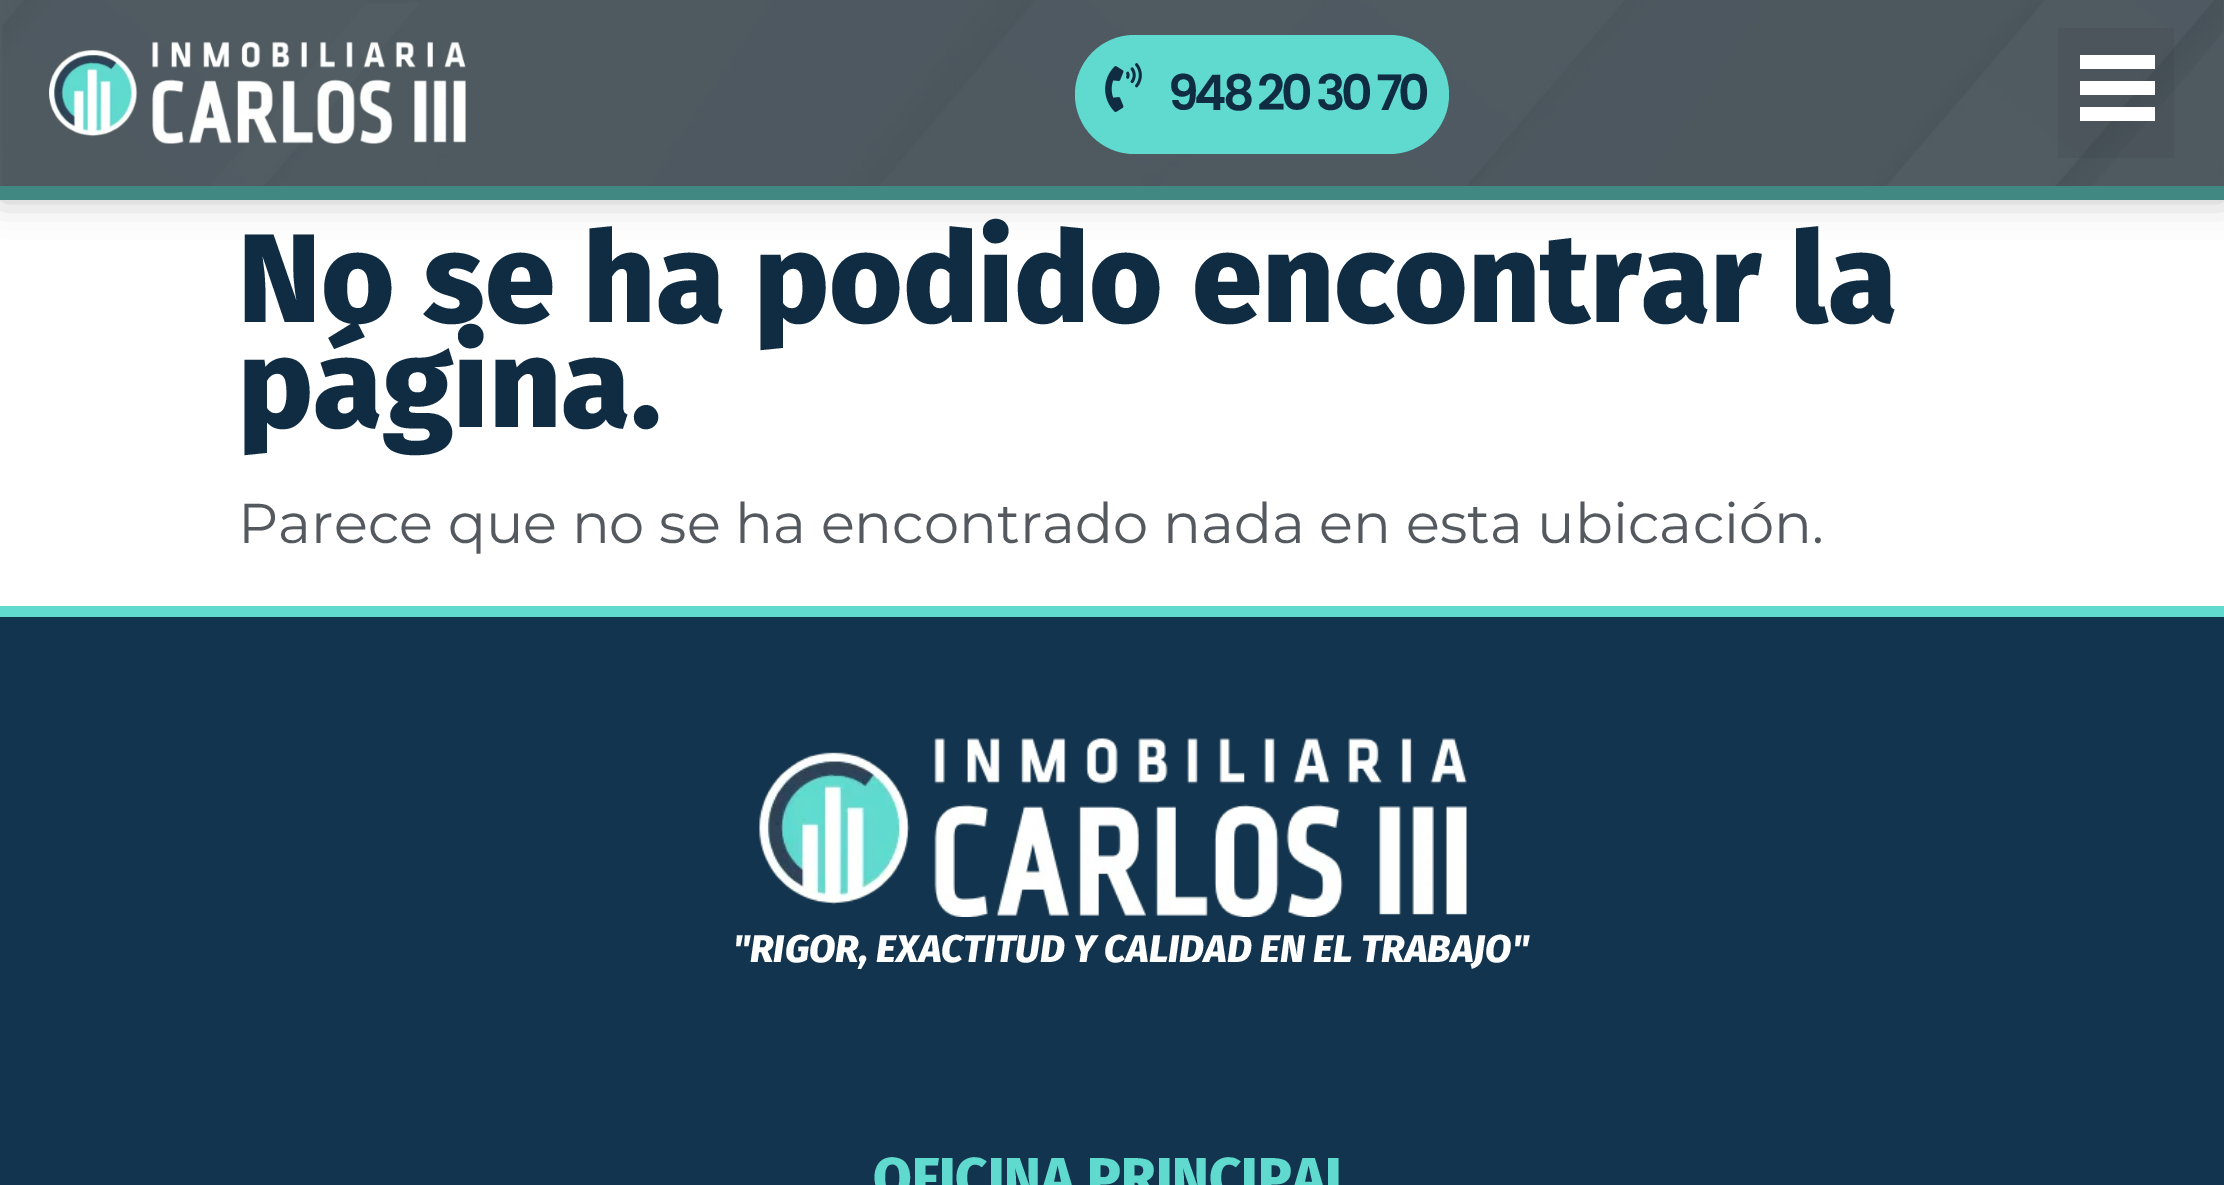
%!PS
<< /PageSize [2224 1185] /PageUsesTransparency true >> setpagedevice
/rgb { dup -16 bitshift 255 div exch dup -8 bitshift 255 and 255 div exch 255 and 255 div setrgbcolor } def
/font { [ exch dup neg 0 0 3 -1 roll 0 0 ] selectfont } def
/text { moveto show } def
/alpha { dup .setfillconstantalpha .setstrokeconstantalpha } def
/roundrect { 5 dict begin { /r /h /w /y /x } { exch def } forall
  x r add y moveto x w add y 2 copy h add r arct x w add y h add x 1 index r arct
  x y h add x y r arct x y 2 copy exch w add exch r arct closepath end } def
/shadow { 12 dict begin { /a /b /q /h /w /y /x } { exch def } forall gsave /was 0 def
  9 -2 -9 { dup b mul 4 div /e exch def 1 sub .425 mul 2.718 exch exp 1 add a .99 .min exch div /now exch def
    1 1 now sub 1 was sub div sub alpha /was now def
    w h .min e 2 mul add 0 gt { x e sub y e sub w e 2 mul add h e 2 mul add
      q e add b .6 mul add w h .min 2 div e add .min 0 .max roundrect fill } if } for grestore end } def
/picture { 5 dict begin { /h /w /y /x /name } { exch def } forall
  gsave x y translate w h scale
  w h 8 [w 0 0 h 0 0] name (r) file false 3 colorimage grestore end } def
0 .pushpdf14devicefilter
0 1185 translate 1 -1 scale
4 setmiterlimit
/s1 { /FiraSans-ExtraBold 126 font 16#102C42 rgb } def
/s2 { /Montserrat-Regular 56 font 16#54595F rgb } def
/s3 { /FiraSans-ExtraBoldItalic 38.5 font 16#FFFFFF rgb } def
/s4 { /FiraSans-ExtraBold 56 font 16#60DACF rgb } def
16#FFFFFF rgb
0 0 2224 1185 rectfill
16#000000 rgb
0 0 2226 200 0 17.5 0.24 shadow
(pic1.raw) 0 0 2224 186 picture
(pic2.raw) 49 41 417 103 picture
16#60DACF rgb
1075 35 374 119 59.5 roundrect fill
(pic3.raw) 1105 63 37 49 picture
/Poppins-SemiBold 49 font
16#102C42 rgb
1168 110 moveto -4.25 0 (948 20 30 70) ashow
0.05 alpha
16#000000 rgb
2058 28 116 130 rectfill
1 alpha
16#FFFFFF rgb
2080 55 75 14 rectfill
2080 81 75 14 rectfill
2080 107 75 14 rectfill
16#428882 rgb
0 186 2224 14 rectfill
s1
(No se ha podido encontrar la) 238 322 text
(página.) 238 427 text
s2
(Parece que no se ha encontrado nada en esta ubicación.) 238 543 text
16#13344E rgb
0 617 2224 568 rectfill
16#60DACF rgb
0 606 2224 11 rectfill
(pic4.raw) 759 738 708 179 picture
s3
("RIGOR, EXACTITUD Y CALIDAD EN EL TRABAJO") 733 962 text
s4
(OFICINA PRINCIPAL) 873 1197 text
.poppdf14devicefilter showpage
